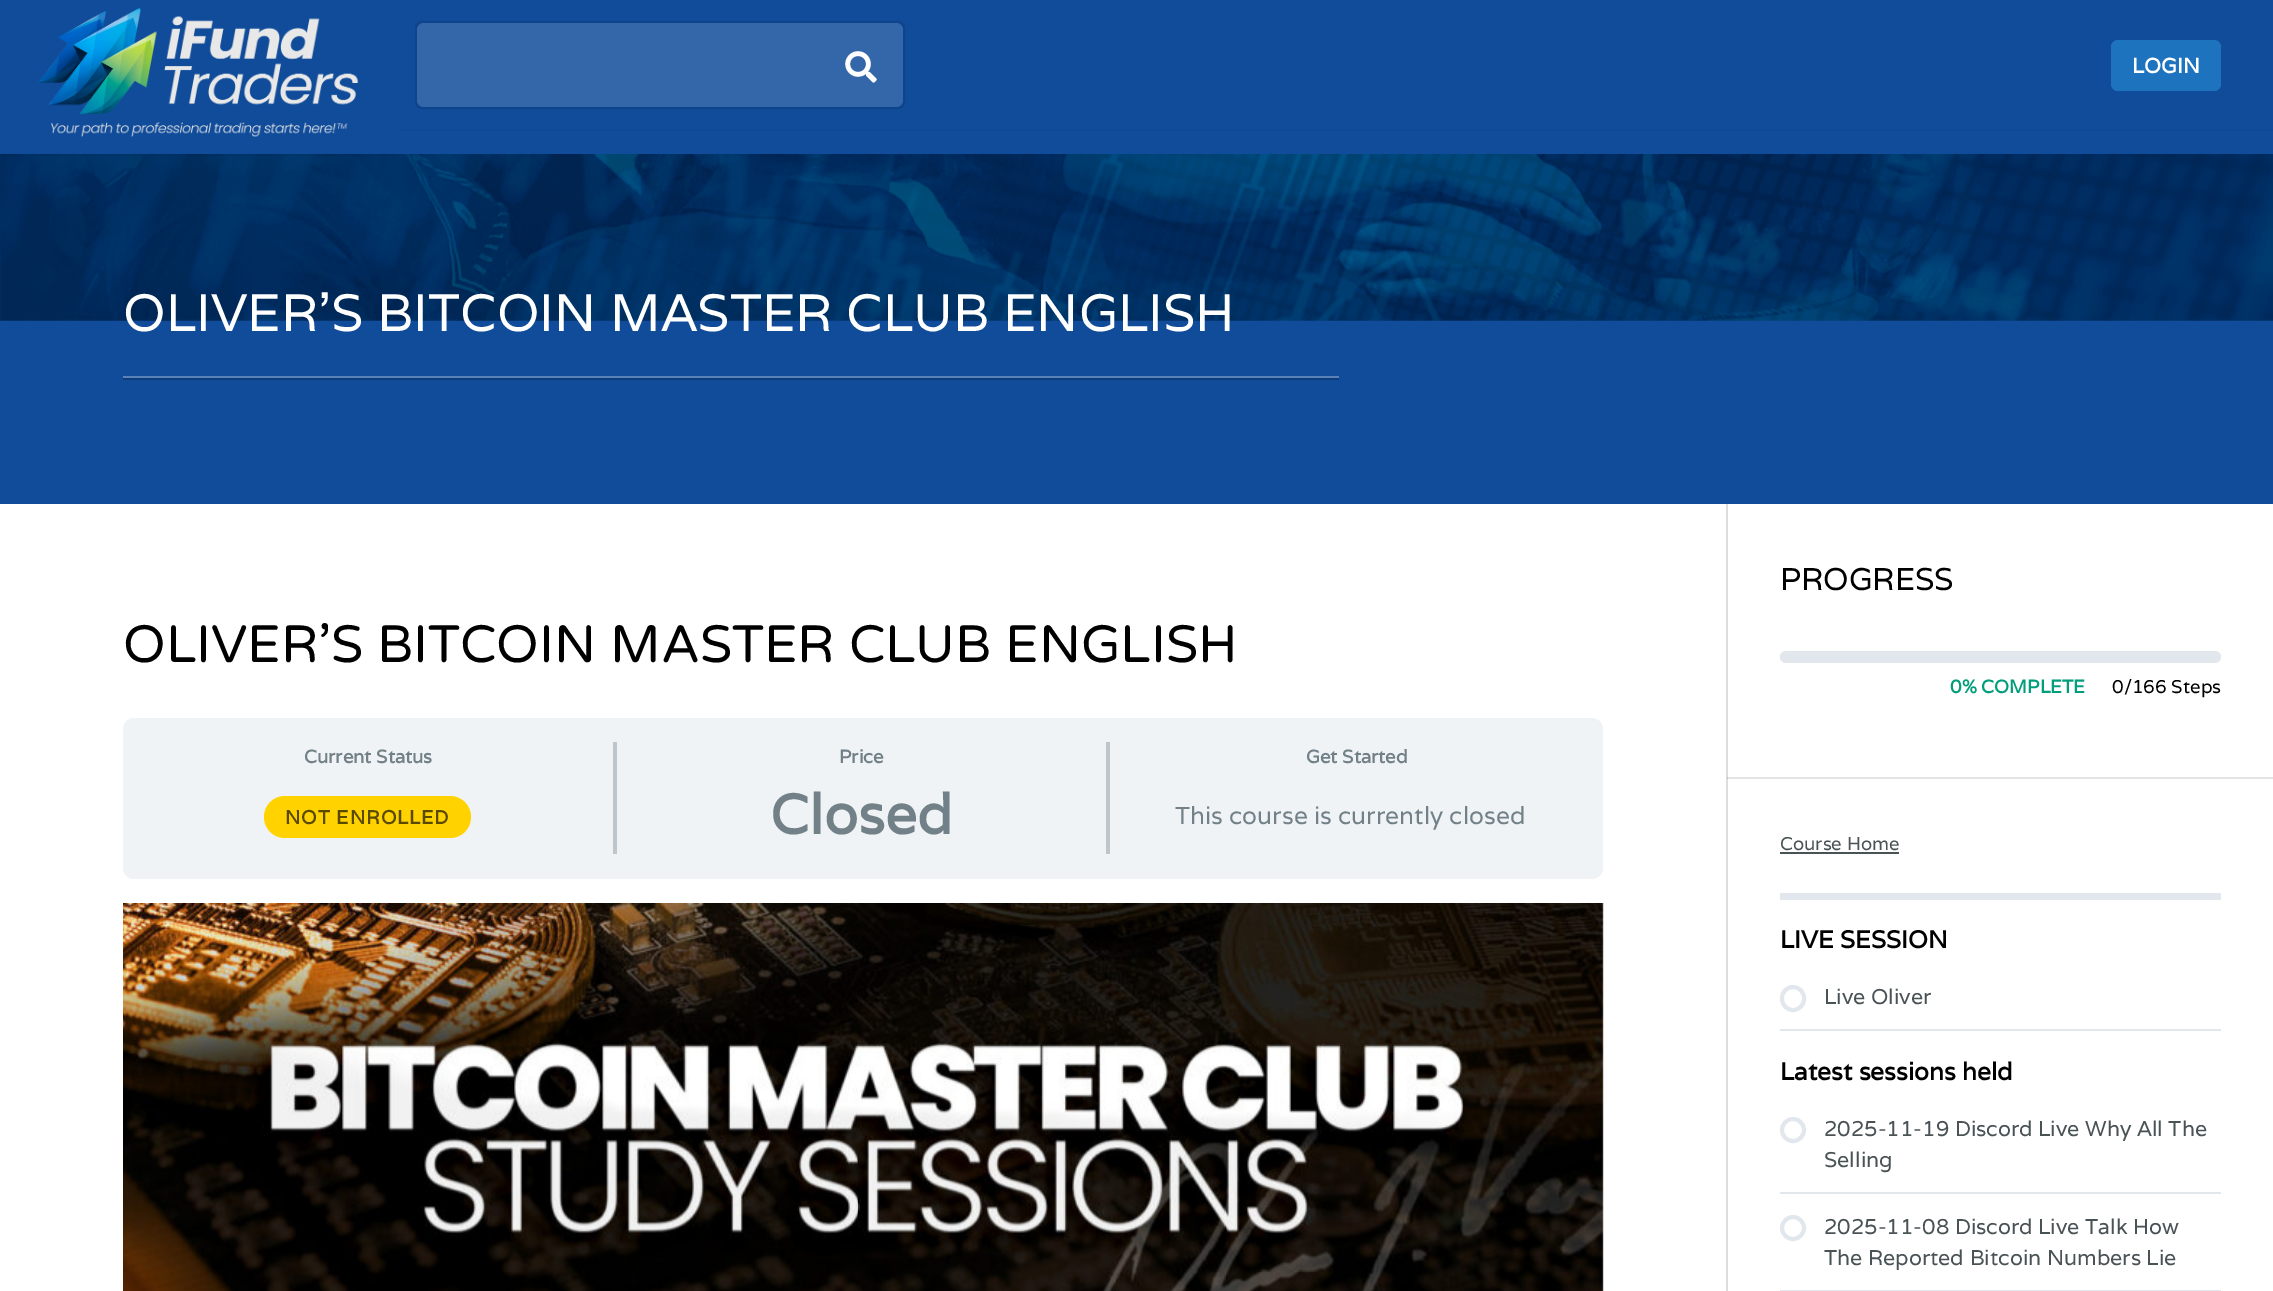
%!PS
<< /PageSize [2273 1291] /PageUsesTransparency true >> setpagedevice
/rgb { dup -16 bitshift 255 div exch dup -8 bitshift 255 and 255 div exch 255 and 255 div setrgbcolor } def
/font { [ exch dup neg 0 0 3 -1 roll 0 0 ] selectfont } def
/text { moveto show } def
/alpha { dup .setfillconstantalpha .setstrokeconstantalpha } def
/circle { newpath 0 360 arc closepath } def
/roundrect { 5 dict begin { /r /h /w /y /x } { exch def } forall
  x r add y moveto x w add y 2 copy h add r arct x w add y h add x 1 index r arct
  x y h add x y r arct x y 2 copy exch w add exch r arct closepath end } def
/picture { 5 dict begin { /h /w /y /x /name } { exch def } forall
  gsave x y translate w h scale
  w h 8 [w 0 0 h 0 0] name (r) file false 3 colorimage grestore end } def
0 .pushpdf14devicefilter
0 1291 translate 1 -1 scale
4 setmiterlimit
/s1 { /Varela-Bold 21 font 16#FFFFFF rgb } def
/s2 { /Varela-Regular 52.5 font 16#FFFFFF rgb } def
/s3 { /VarelaRound-Regular 52.5 font 16#000000 rgb } def
/s4 { /Varela-Bold 18.5 font 16#728188 rgb } def
/s5 { /Varela-Bold 56 font 16#728188 rgb } def
/s6 { /Varela-Regular 24.5 font 16#728188 rgb } def
/s7 { /Varela-Regular 31.5 font 16#000000 rgb } def
/s8 { /Varela-Bold 18.5 font 16#019E7C rgb } def
/s9 { /Varela-Regular 18.5 font 16#000000 rgb } def
/s10 { /Varela-Regular 18.5 font 16#495255 rgb } def
/s11 { /Varela-Bold 24.5 font 16#000000 rgb } def
/s12 { /Varela-Regular 21.4 font 16#495255 rgb } def
16#104C9A rgb
0 0 2273 1291 rectfill
(pic3.raw) 0 154 2273 167 picture
0.05 alpha
16#000000 rgb
0 154 397 2 rectfill
1 alpha
(pic1.raw) 38 8 321 129 picture
16#0F4892 rgb
397 2 moveto 397 131 lineto 2273 131 lineto 2273 130 lineto 397 130 lineto closepath fill
16#0E448B rgb
2 setlinewidth
416 22 488 86 6 roundrect stroke
16#3467A9 rgb
417 23 486 84 7 roundrect fill
(pic2.raw) 845 51 32 32 picture
16#1E73BE rgb
2111 40 110 51 7 roundrect fill
s1
(LOGIN) 2132 73 text
0 504 2273 787 rectfill
16#E3E3E3 rgb
1727 777 546 2 rectfill
16#0D3D7B rgb
123 378 moveto 123 380 lineto 1339 380 lineto 1339 284 lineto 1339 378 lineto closepath fill
16#5882B8 rgb
123 376 1216 2 rectfill
s2
(OLIVER’S BITCOIN MASTER CLUB ENGLISH) 123 331 text
16#DDDDDD rgb
1726 504 2 787 rectfill
16#C5C5C5 rgb
1727 777 1 2 rectfill
s3
(OLIVER’S BITCOIN MASTER CLUB ENGLISH) 123 662 text
16#F0F3F6 rgb
123 718 1480 161 11 roundrect fill
16#BEC5CB rgb
613 742 4 112 rectfill
s4
(Current Status) 304 763 text
16#FFD200 rgb
264 796 207 42 21 roundrect fill
/Varela-Bold 19.25 font
16#594A00 rgb
285 824 moveto 0.9 0 (NOT ENROLLED) ashow
16#BEC5CB rgb
1106 742 4 112 rectfill
s4
(Price) 839 763 text
s5
(Closed) 770 834 text
s4
(Get Started) 1306 763 text
s6
(This course is currently closed) 1175 824 text
(pic4.raw) 123 903 1481 388 picture
s7
(PROGRESS) 1780 590 text
16#E2E7ED rgb
1780 651 441 12 6 roundrect fill
s8
(0% COMPLETE) 1950 693 text
s9
(0/166 Steps) 2112 693 text
16#E2E7ED rgb
1780 893 441 7 rectfill
s10
(Course Home) 1780 850 text
1780 852 119 2 rectfill
s11
(LIVE SESSION) 1780 948 text
16#E2E7ED rgb
1780 1029 441 2 rectfill
4 setlinewidth
1782 987 22 23 11 roundrect stroke
s12
(Live Oliver) 1824 1004 text
s11
(Latest sessions held) 1780 1080 text
16#E2E7ED rgb
1780 1192 441 2 rectfill
1793 1130 11 circle stroke
s12
(2025-11-19 Discord Live Why All The) 1824 1136 text
(Selling) 1824 1167 text
16#E2E7ED rgb
1780 1290 441 1 rectfill
1793 1228 11 circle stroke
s12
(2025-11-08 Discord Live Talk How) 1824 1234 text
(The Reported Bitcoin Numbers Lie) 1824 1265 text
.poppdf14devicefilter showpage
